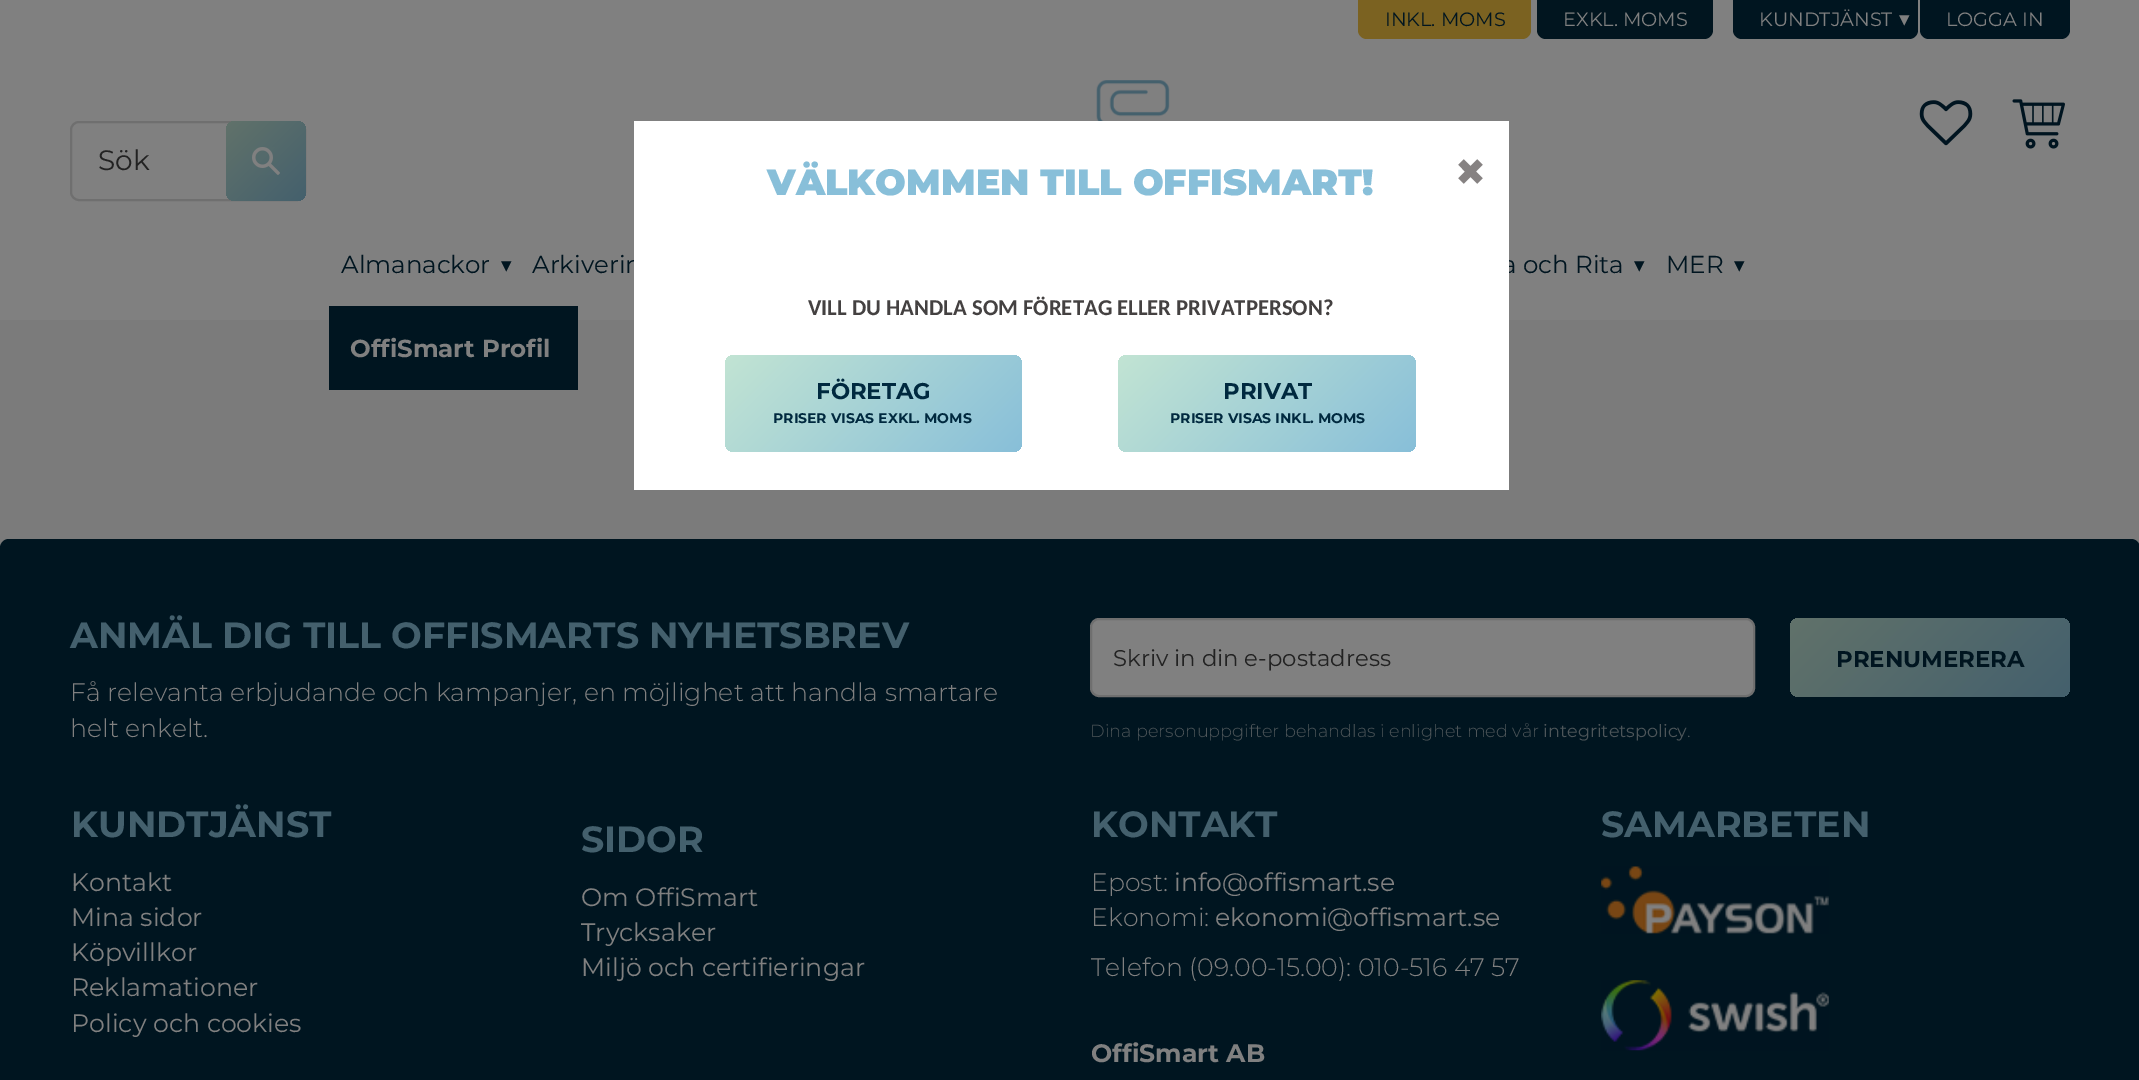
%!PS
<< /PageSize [2139 1080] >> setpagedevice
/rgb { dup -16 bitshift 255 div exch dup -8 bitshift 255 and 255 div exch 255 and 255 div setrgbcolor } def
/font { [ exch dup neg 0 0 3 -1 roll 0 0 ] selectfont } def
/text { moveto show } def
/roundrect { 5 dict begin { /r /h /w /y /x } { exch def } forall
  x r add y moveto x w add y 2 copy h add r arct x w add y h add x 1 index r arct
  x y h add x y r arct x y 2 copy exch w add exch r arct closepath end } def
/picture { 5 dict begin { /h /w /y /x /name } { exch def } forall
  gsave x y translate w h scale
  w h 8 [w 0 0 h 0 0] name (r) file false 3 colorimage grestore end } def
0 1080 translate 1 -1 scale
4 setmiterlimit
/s1 { /Montserrat-Regular 19.25 font 16#001520 rgb } def
/s2 { /Montserrat-Regular 19.25 font 16#808080 rgb } def
/s3 { /DejaVuSans-Regular 21 font 16#808080 rgb } def
/s4 { /Montserrat-Regular 28 font 16#222222 rgb } def
/s5 { /Montserrat-Regular 24.5 font 16#001520 rgb } def
/s6 { /DejaVuSans-Regular 21 font 16#001520 rgb } def
/s7 { /Montserrat-Bold 24.5 font 16#808080 rgb } def
/s8 { /Montserrat-Black 36.4 font 16#88BFD9 rgb } def
/s9 { /DejaVuSans-Regular 37 font 16#868282 rgb } def
/s10 { /Carlito-Bold 22.7 font 16#444141 rgb } def
/s11 { /Montserrat-Bold 22.7 font 16#00293F rgb } def
/s12 { /Montserrat-Bold 14 font 16#00293F rgb } def
/s13 { /Montserrat-Bold 36.4 font 16#44606D rgb } def
/s14 { /Montserrat-Light 25.2 font 16#808080 rgb } def
/s15 { /Montserrat-Regular 22.75 font 16#222222 rgb } def
/s16 { /Montserrat-Bold 22.75 font 16#001520 rgb } def
/s17 { /Montserrat-Light 17.65 font 16#4D5559 rgb } def
/s18 { /Montserrat-Regular 17.65 font 16#4D5559 rgb } def
/s19 { /Montserrat-Regular 25.2 font 16#808080 rgb } def
/s20 { /Montserrat-Bold 25.2 font 16#808080 rgb } def
16#7B7B7B rgb
0 0 2139 1080 rectfill
16#808080 rgb
0 0 2139 320 rectfill
16#7B6221 rgb
1358 0 moveto 1531 0 lineto 1531 30 lineto 1531 35 1527 39 1522 39 curveto 1367 39 lineto 1362 39 1358 35 1358 30 curveto closepath fill
s1
(INKL. MOMS) 1385 26 text
16#01151F rgb
1537 0 moveto 1713 0 lineto 1713 30 lineto 1713 35 1709 39 1704 39 curveto 1546 39 lineto 1541 39 1537 35 1537 30 curveto closepath fill
s2
(EXKL. MOMS) 1563 26 text
16#001520 rgb
1733 0 moveto 1918 0 lineto 1918 30 lineto 1918 35 1914 39 1909 39 curveto 1742 39 lineto 1737 39 1733 35 1733 30 curveto closepath fill
s2
(KUNDTJÄNST) 1759 26 text
s3
(▾) 1899 26 text
16#001520 rgb
1920 0 moveto 2070 0 lineto 2070 30 lineto 2070 35 2066 39 2061 39 curveto 1929 39 lineto 1924 39 1920 35 1920 30 curveto closepath fill
s2
(LOGGA IN) 1946 26 text
(pic1.raw) 1096 80 74 41 picture
(pic2.raw) 1919 100 54 46 picture
(pic3.raw) 2012 99 53 50 picture
16#6F6F6F rgb
2 setlinewidth
71 122 234 78 8 roundrect stroke
s4
(Sök) 98 170 text
gsave 226 121 80 80 9 roundrect clip newpath
<< /ShadingType 2 /ColorSpace /DeviceRGB /Coords [226 121 306 201] /Extend [true true] /Function << /FunctionType 2 /Domain [0 1] /C0 [0.38 0.447 0.416] /C1 [0.267 0.376 0.427] /N 1 >> >> shfill grestore
(pic4.raw) 252 147 28 28 picture
s5
(Almanackor) 341 273 text
s6
(▾) 501 272 text
s5
(Arkiverin) 532 273 text
(a och Rita) 1502 273 text
s6
(▾) 1634 272 text
s5
(MER) 1666 273 text
s6
(▾) 1734 272 text
329 306 249 84 rectfill
s7
(OffiSmart Profil) 350 357 text
16#001520 rgb
0 539 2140 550 9 roundrect fill
16#FFFFFF rgb
634 121 875 369 rectfill
s8
(VÄLKOMMEN TILL OFFISMART!) 767 195 text
s9
(✖) 1455 185 text
s10
(VILL DU HANDLA SOM FÖRETAG ELLER PRIVATPERSON?) 808 315 text
gsave 725 355 297 97 9 roundrect clip newpath
<< /ShadingType 2 /ColorSpace /DeviceRGB /Coords [775 305 972 502] /Extend [true true] /Function << /FunctionType 2 /Domain [0 1] /C0 [0.761 0.894 0.827] /C1 [0.533 0.749 0.851] /N 1 >> >> shfill grestore
s11
(FÖRETAG) 816 399 text
s12
(PRISER VISAS EXKL. MOMS) 773 423 text
gsave 1118 355 298 97 9 roundrect clip newpath
<< /ShadingType 2 /ColorSpace /DeviceRGB /Coords [1169 305 1365 502] /Extend [true true] /Function << /FunctionType 2 /Domain [0 1] /C0 [0.761 0.894 0.827] /C1 [0.533 0.749 0.851] /N 1 >> >> shfill grestore
s11
(PRIVAT) 1223 399 text
s12
(PRISER VISAS INKL. MOMS) 1170 423 text
s13
(ANMÄL DIG TILL OFFISMARTS NYHETSBREV) 70 648 text
s14
(Få relevanta erbjudande och kampanjer, en möjlighet att handla smartare) 70 701 text
(helt enkelt.) 70 737 text
1091 619 663 77 8 roundrect gsave fill grestore
16#6F6F6F rgb
stroke
s15
(Skriv in din e-postadress) 1113 666 text
gsave 1790 618 280 79 9 roundrect clip newpath
<< /ShadingType 2 /ColorSpace /DeviceRGB /Coords [1841 567 2020 747] /Extend [true true] /Function << /FunctionType 2 /Domain [0 1] /C0 [0.38 0.447 0.416] /C1 [0.267 0.376 0.427] /N 1 >> >> shfill grestore
s16
(PRENUMERERA) 1836 667 text
s17
(Dina personuppgifter behandlas i enlighet med vår) 1090 737 text
s18
(integritetspolicy) 1543 737 text
s17
(.) 1687 737 text
s13
(KUNDTJÄNST) 71 837 text
s19
(Kontakt) 71 891 text
(Mina sidor) 71 926 text
(Köpvillkor) 71 961 text
(Reklamationer) 71 996 text
(Policy och cookies) 71 1032 text
s13
(SIDOR) 581 852 text
s19
(Om OffiSmart) 581 906 text
(Trycksaker) 581 941 text
(Miljö och certifieringar) 581 976 text
s13
(KONTAKT) 1091 837 text
s14
(Epost:) 1091 891 text
s19
(info@offismart.se) 1174 891 text
s14
(Ekonomi:) 1091 926 text
s19
(ekonomi@offismart.se) 1215 926 text
s14
(Telefon \(09.00-15.00\): 010-516 47 57) 1091 976 text
s20
(OffiSmart AB) 1091 1062 text
s13
(SAMARBETEN) 1601 837 text
(pic5.raw) 1601 866 228 68 picture
(pic6.raw) 1601 980 228 71 picture
showpage
